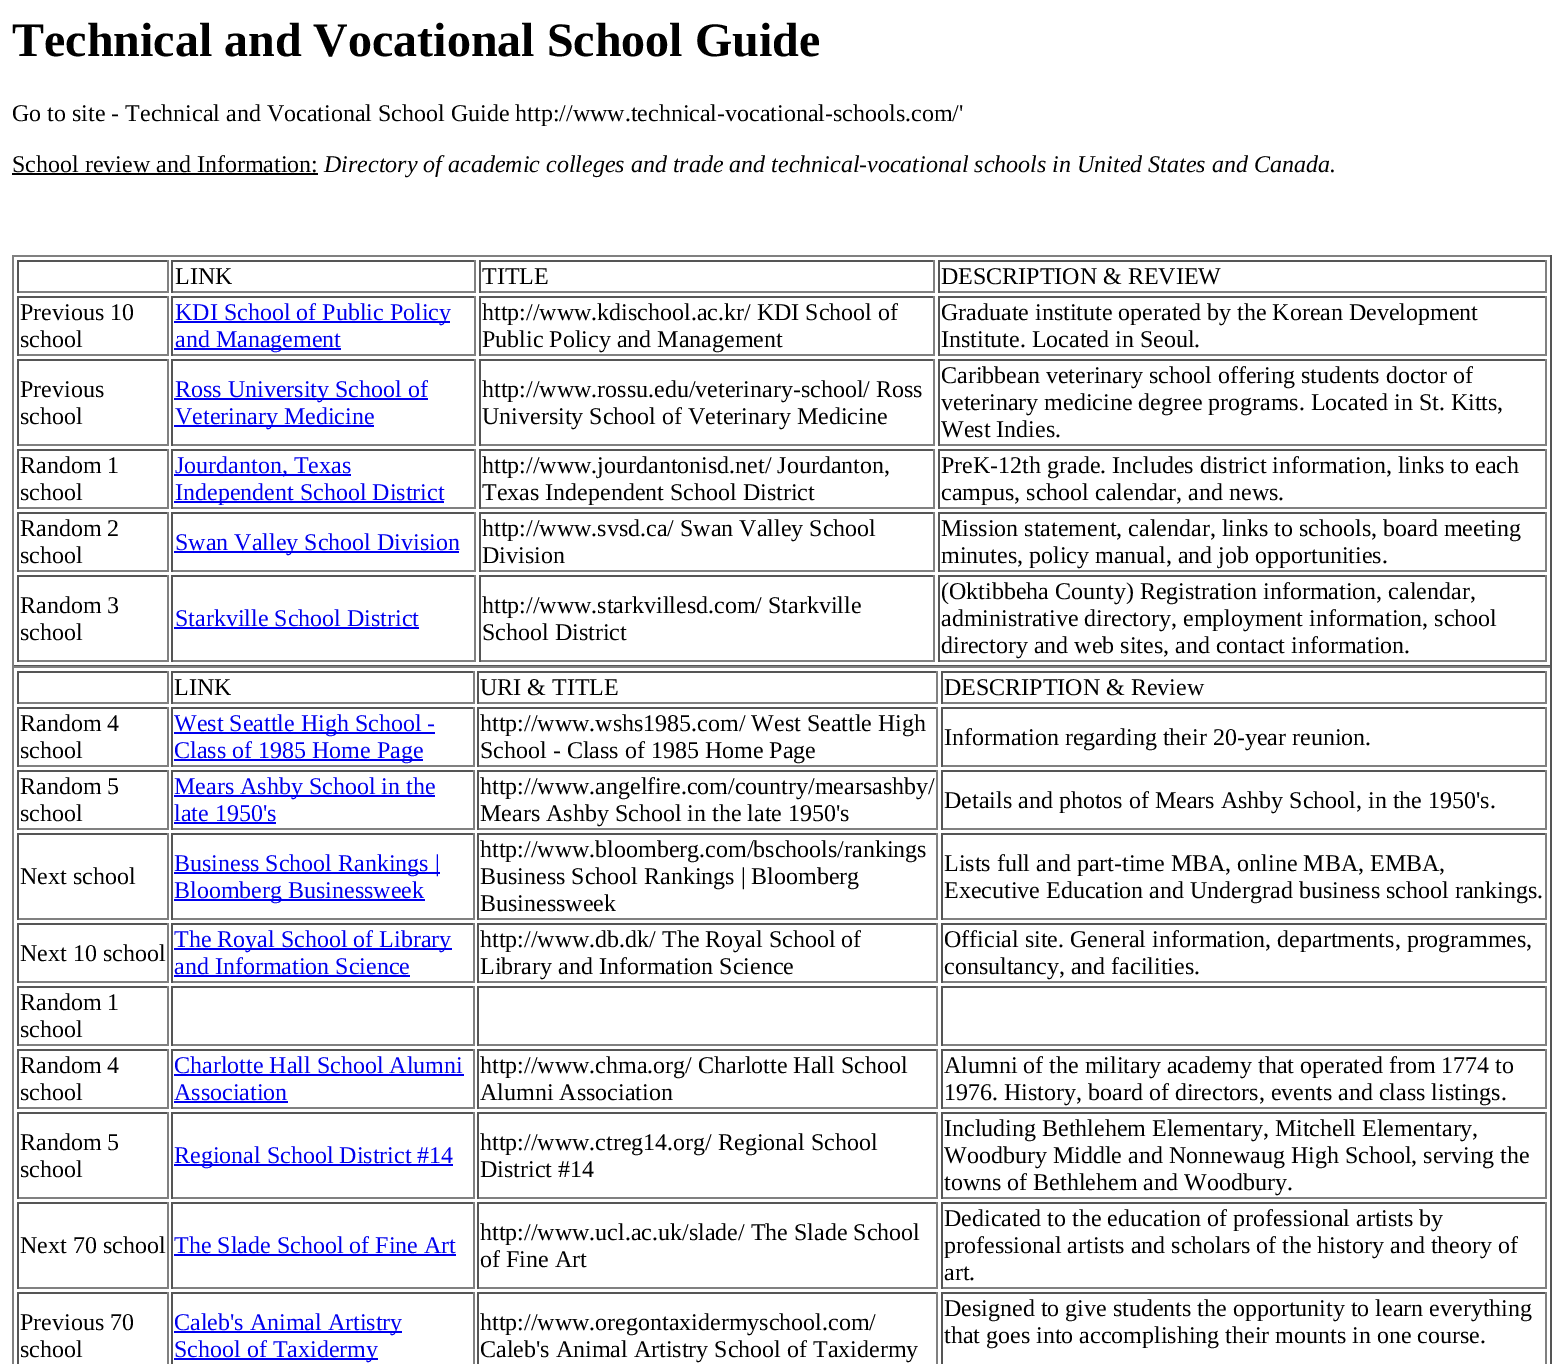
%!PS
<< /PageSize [1563 1364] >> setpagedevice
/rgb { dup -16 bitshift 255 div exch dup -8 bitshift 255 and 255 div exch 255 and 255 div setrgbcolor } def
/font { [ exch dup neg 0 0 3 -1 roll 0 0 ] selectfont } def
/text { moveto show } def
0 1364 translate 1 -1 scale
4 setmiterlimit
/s1 { /LiberationSerif-Bold 48 font 16#000000 rgb } def
/s2 { /LiberationSerif-Regular 24 font 16#000000 rgb } def
/s3 { /LiberationSerif-Italic 24 font 16#000000 rgb } def
/s4 { /LiberationSerif-Regular 24 font 16#0000EE rgb } def
16#FFFFFF rgb
0 0 1563 1364 rectfill
s1
(Technical and Vocational School Guide) 12 56 text
s2
(Go to site - Technical and Vocational School Guide http://www.technical-vocational-schools.com/') 12 121 text
(School review and Information:) 12 172 text
12 173 306 2 rectfill
s3
(Directory of academic colleges and trade and technical-vocational schools in United States and Canada.) 324 172 text
16#808080 rgb
12 255 1539 2 rectfill
16#555555 rgb
1550 255 2 411 rectfill
12 665 1539 1 rectfill
16#808080 rgb
12 255 2 411 rectfill
16#555555 rgb
17 260 151 2 rectfill
16#808080 rgb
167 260 2 33 rectfill
17 291 151 2 rectfill
16#555555 rgb
17 260 2 33 rectfill
171 260 305 2 rectfill
16#808080 rgb
474 260 2 33 rectfill
171 291 305 2 rectfill
16#555555 rgb
171 260 2 33 rectfill
s2
(LINK) 175 284 text
16#555555 rgb
479 260 456 2 rectfill
16#808080 rgb
933 260 2 33 rectfill
479 291 456 2 rectfill
16#555555 rgb
479 260 2 33 rectfill
s2
(TITLE) 482 284 text
16#555555 rgb
938 260 609 2 rectfill
16#808080 rgb
1545 260 2 33 rectfill
938 291 609 2 rectfill
16#555555 rgb
938 260 2 33 rectfill
s2
(DESCRIPTION & REVIEW) 941 284 text
16#555555 rgb
17 296 151 2 rectfill
16#808080 rgb
167 296 2 60 rectfill
17 354 151 2 rectfill
16#555555 rgb
17 296 2 60 rectfill
s2
(Previous 10) 20 320 text
(school) 20 347 text
16#555555 rgb
171 296 305 2 rectfill
16#808080 rgb
474 296 2 60 rectfill
171 354 305 2 rectfill
16#555555 rgb
171 296 2 60 rectfill
16#0000EE rgb
174 321 276 2 rectfill
(KDI School of Public Policy) 175 320 text
174 348 167 2 rectfill
(and Management) 175 347 text
16#555555 rgb
479 296 456 2 rectfill
16#808080 rgb
933 296 2 60 rectfill
479 354 456 2 rectfill
16#555555 rgb
479 296 2 60 rectfill
s2
(http://www.kdischool.ac.kr/ KDI School of) 482 320 text
(Public Policy and Management) 482 347 text
16#555555 rgb
938 296 609 2 rectfill
16#808080 rgb
1545 296 2 60 rectfill
938 354 609 2 rectfill
16#555555 rgb
938 296 2 60 rectfill
s2
(Graduate institute operated by the Korean Development) 941 320 text
(Institute. Located in Seoul.) 941 347 text
16#555555 rgb
17 359 151 2 rectfill
16#808080 rgb
167 359 2 87 rectfill
17 444 151 2 rectfill
16#555555 rgb
17 359 2 87 rectfill
s2
(Previous) 20 397 text
(school) 20 424 text
16#555555 rgb
171 359 305 2 rectfill
16#808080 rgb
474 359 2 87 rectfill
171 444 305 2 rectfill
16#555555 rgb
171 359 2 87 rectfill
16#0000EE rgb
174 398 254 2 rectfill
(Ross University School of) 175 397 text
174 425 200 2 rectfill
(Veterinary Medicine) 175 424 text
16#555555 rgb
479 359 456 2 rectfill
16#808080 rgb
933 359 2 87 rectfill
479 444 456 2 rectfill
16#555555 rgb
479 359 2 87 rectfill
s2
(http://www.rossu.edu/veterinary-school/ Ross) 482 397 text
(University School of Veterinary Medicine) 482 424 text
16#555555 rgb
938 359 609 2 rectfill
16#808080 rgb
1545 359 2 87 rectfill
938 444 609 2 rectfill
16#555555 rgb
938 359 2 87 rectfill
s2
(Caribbean veterinary school offering students doctor of) 941 383 text
(veterinary medicine degree programs. Located in St. Kitts,) 941 410 text
(West Indies.) 941 437 text
16#555555 rgb
17 449 151 2 rectfill
16#808080 rgb
167 449 2 60 rectfill
17 507 151 2 rectfill
16#555555 rgb
17 449 2 60 rectfill
s2
(Random 1) 20 473 text
(school) 20 500 text
16#555555 rgb
171 449 305 2 rectfill
16#808080 rgb
474 449 2 60 rectfill
171 507 305 2 rectfill
16#555555 rgb
171 449 2 60 rectfill
16#0000EE rgb
174 474 177 2 rectfill
(Jourdanton, Texas) 175 473 text
174 501 270 2 rectfill
(Independent School District) 175 500 text
16#555555 rgb
479 449 456 2 rectfill
16#808080 rgb
933 449 2 60 rectfill
479 507 456 2 rectfill
16#555555 rgb
479 449 2 60 rectfill
s2
(http://www.jourdantonisd.net/ Jourdanton,) 482 473 text
(Texas Independent School District) 482 500 text
16#555555 rgb
938 449 609 2 rectfill
16#808080 rgb
1545 449 2 60 rectfill
938 507 609 2 rectfill
16#555555 rgb
938 449 2 60 rectfill
s2
(PreK-12th grade. Includes district information, links to each) 941 473 text
(campus, school calendar, and news.) 941 500 text
16#555555 rgb
17 512 151 2 rectfill
16#808080 rgb
167 512 2 60 rectfill
17 570 151 2 rectfill
16#555555 rgb
17 512 2 60 rectfill
s2
(Random 2) 20 536 text
(school) 20 563 text
16#555555 rgb
171 512 305 2 rectfill
16#808080 rgb
474 512 2 60 rectfill
171 570 305 2 rectfill
16#555555 rgb
171 512 2 60 rectfill
16#0000EE rgb
174 551 285 2 rectfill
(Swan Valley School Division) 175 550 text
16#555555 rgb
479 512 456 2 rectfill
16#808080 rgb
933 512 2 60 rectfill
479 570 456 2 rectfill
16#555555 rgb
479 512 2 60 rectfill
s2
(http://www.svsd.ca/ Swan Valley School) 482 536 text
(Division) 482 563 text
16#555555 rgb
938 512 609 2 rectfill
16#808080 rgb
1545 512 2 60 rectfill
938 570 609 2 rectfill
16#555555 rgb
938 512 2 60 rectfill
s2
(Mission statement, calendar, links to schools, board meeting) 941 536 text
(minutes, policy manual, and job opportunities.) 941 563 text
16#555555 rgb
17 575 151 2 rectfill
16#808080 rgb
167 575 2 87 rectfill
17 660 151 2 rectfill
16#555555 rgb
17 575 2 87 rectfill
s2
(Random 3) 20 613 text
(school) 20 640 text
16#555555 rgb
171 575 305 2 rectfill
16#808080 rgb
474 575 2 87 rectfill
171 660 305 2 rectfill
16#555555 rgb
171 575 2 87 rectfill
s4
(Starkville School District) 175 626 text
174 627 245 2 rectfill
16#555555 rgb
479 575 456 2 rectfill
16#808080 rgb
933 575 2 87 rectfill
479 660 456 2 rectfill
16#555555 rgb
479 575 2 87 rectfill
s2
(http://www.starkvillesd.com/ Starkville) 482 613 text
(School District) 482 640 text
16#555555 rgb
938 575 609 2 rectfill
16#808080 rgb
1545 575 2 87 rectfill
938 660 609 2 rectfill
16#555555 rgb
938 575 2 87 rectfill
s2
(\(Oktibbeha County\) Registration information, calendar,) 941 599 text
(administrative directory, employment information, school) 941 626 text
(directory and web sites, and contact information.) 941 653 text
16#808080 rgb
12 666 1539 2 rectfill
16#555555 rgb
1550 666 2 698 rectfill
16#808080 rgb
12 666 2 698 rectfill
16#555555 rgb
17 671 151 2 rectfill
16#808080 rgb
167 671 2 33 rectfill
17 702 151 2 rectfill
16#555555 rgb
17 671 2 33 rectfill
171 671 303 2 rectfill
16#808080 rgb
473 671 2 33 rectfill
171 702 303 2 rectfill
16#555555 rgb
171 671 2 33 rectfill
s2
(LINK) 174 695 text
16#555555 rgb
477 671 461 2 rectfill
16#808080 rgb
936 671 2 33 rectfill
477 702 461 2 rectfill
16#555555 rgb
477 671 2 33 rectfill
s2
(URI & TITLE) 480 695 text
16#555555 rgb
941 671 606 2 rectfill
16#808080 rgb
1545 671 2 33 rectfill
941 702 606 2 rectfill
16#555555 rgb
941 671 2 33 rectfill
s2
(DESCRIPTION & Review) 944 695 text
16#555555 rgb
17 707 151 2 rectfill
16#808080 rgb
167 707 2 60 rectfill
17 765 151 2 rectfill
16#555555 rgb
17 707 2 60 rectfill
s2
(Random 4) 20 731 text
(school) 20 758 text
16#555555 rgb
171 707 303 2 rectfill
16#808080 rgb
473 707 2 60 rectfill
171 765 303 2 rectfill
16#555555 rgb
171 707 2 60 rectfill
16#0000EE rgb
174 732 261 2 rectfill
(West Seattle High School -) 174 731 text
174 759 249 2 rectfill
(Class of 1985 Home Page) 174 758 text
16#555555 rgb
477 707 461 2 rectfill
16#808080 rgb
936 707 2 60 rectfill
477 765 461 2 rectfill
16#555555 rgb
477 707 2 60 rectfill
s2
(http://www.wshs1985.com/ West Seattle High) 480 731 text
(School - Class of 1985 Home Page) 480 758 text
16#555555 rgb
941 707 606 2 rectfill
16#808080 rgb
1545 707 2 60 rectfill
941 765 606 2 rectfill
16#555555 rgb
941 707 2 60 rectfill
s2
(Information regarding their 20-year reunion.) 944 745 text
16#555555 rgb
17 770 151 2 rectfill
16#808080 rgb
167 770 2 60 rectfill
17 828 151 2 rectfill
16#555555 rgb
17 770 2 60 rectfill
s2
(Random 5) 20 794 text
(school) 20 821 text
16#555555 rgb
171 770 303 2 rectfill
16#808080 rgb
473 770 2 60 rectfill
171 828 303 2 rectfill
16#555555 rgb
171 770 2 60 rectfill
16#0000EE rgb
174 795 261 2 rectfill
(Mears Ashby School in the) 174 794 text
(late 1950's) 174 821 text
174 822 102 2 rectfill
16#555555 rgb
477 770 461 2 rectfill
16#808080 rgb
936 770 2 60 rectfill
477 828 461 2 rectfill
16#555555 rgb
477 770 2 60 rectfill
s2
(http://www.angelfire.com/country/mearsashby/) 480 794 text
(Mears Ashby School in the late 1950's) 480 821 text
16#555555 rgb
941 770 606 2 rectfill
16#808080 rgb
1545 770 2 60 rectfill
941 828 606 2 rectfill
16#555555 rgb
941 770 2 60 rectfill
s2
(Details and photos of Mears Ashby School, in the 1950's.) 944 808 text
16#555555 rgb
17 833 151 2 rectfill
16#808080 rgb
167 833 2 87 rectfill
17 918 151 2 rectfill
16#555555 rgb
17 833 2 87 rectfill
s2
(Next school) 20 884 text
16#555555 rgb
171 833 303 2 rectfill
16#808080 rgb
473 833 2 87 rectfill
171 918 303 2 rectfill
16#555555 rgb
171 833 2 87 rectfill
16#0000EE rgb
174 872 266 2 rectfill
(Business School Rankings |) 174 871 text
174 899 251 2 rectfill
(Bloomberg Businessweek) 174 898 text
16#555555 rgb
477 833 461 2 rectfill
16#808080 rgb
936 833 2 87 rectfill
477 918 461 2 rectfill
16#555555 rgb
477 833 2 87 rectfill
s2
(http://www.bloomberg.com/bschools/rankings) 480 857 text
(Business School Rankings | Bloomberg) 480 884 text
(Businessweek) 480 911 text
16#555555 rgb
941 833 606 2 rectfill
16#808080 rgb
1545 833 2 87 rectfill
941 918 606 2 rectfill
16#555555 rgb
941 833 2 87 rectfill
s2
(Lists full and part-time MBA, online MBA, EMBA,) 944 871 text
(Executive Education and Undergrad business school rankings.) 944 898 text
16#555555 rgb
17 923 151 2 rectfill
16#808080 rgb
167 923 2 60 rectfill
17 981 151 2 rectfill
16#555555 rgb
17 923 2 60 rectfill
s2
(Next 10 school) 20 961 text
16#555555 rgb
171 923 303 2 rectfill
16#808080 rgb
473 923 2 60 rectfill
171 981 303 2 rectfill
16#555555 rgb
171 923 2 60 rectfill
16#0000EE rgb
174 948 278 2 rectfill
(The Royal School of Library) 174 947 text
(and Information Science) 174 974 text
174 975 236 2 rectfill
16#555555 rgb
477 923 461 2 rectfill
16#808080 rgb
936 923 2 60 rectfill
477 981 461 2 rectfill
16#555555 rgb
477 923 2 60 rectfill
s2
(http://www.db.dk/ The Royal School of) 480 947 text
(Library and Information Science) 480 974 text
16#555555 rgb
941 923 606 2 rectfill
16#808080 rgb
1545 923 2 60 rectfill
941 981 606 2 rectfill
16#555555 rgb
941 923 2 60 rectfill
s2
(Official site. General information, departments, programmes,) 944 947 text
(consultancy, and facilities.) 944 974 text
16#555555 rgb
17 986 151 2 rectfill
16#808080 rgb
167 986 2 60 rectfill
17 1044 151 2 rectfill
16#555555 rgb
17 986 2 60 rectfill
s2
(Random 1) 20 1010 text
(school) 20 1037 text
16#555555 rgb
171 986 303 2 rectfill
16#808080 rgb
473 986 2 60 rectfill
171 1044 303 2 rectfill
16#555555 rgb
171 986 2 60 rectfill
477 986 461 2 rectfill
16#808080 rgb
936 986 2 60 rectfill
477 1044 461 2 rectfill
16#555555 rgb
477 986 2 60 rectfill
941 986 606 2 rectfill
16#808080 rgb
1545 986 2 60 rectfill
941 1044 606 2 rectfill
16#555555 rgb
941 986 2 60 rectfill
17 1049 151 2 rectfill
16#808080 rgb
167 1049 2 60 rectfill
17 1107 151 2 rectfill
16#555555 rgb
17 1049 2 60 rectfill
s2
(Random 4) 20 1073 text
(school) 20 1100 text
16#555555 rgb
171 1049 303 2 rectfill
16#808080 rgb
473 1049 2 60 rectfill
171 1107 303 2 rectfill
16#555555 rgb
171 1049 2 60 rectfill
s4
(Charlotte Hall School Alumni) 174 1073 text
174 1074 290 2 rectfill
(Association) 174 1100 text
174 1101 114 2 rectfill
16#555555 rgb
477 1049 461 2 rectfill
16#808080 rgb
936 1049 2 60 rectfill
477 1107 461 2 rectfill
16#555555 rgb
477 1049 2 60 rectfill
s2
(http://www.chma.org/ Charlotte Hall School) 480 1073 text
(Alumni Association) 480 1100 text
16#555555 rgb
941 1049 606 2 rectfill
16#808080 rgb
1545 1049 2 60 rectfill
941 1107 606 2 rectfill
16#555555 rgb
941 1049 2 60 rectfill
s2
(Alumni of the military academy that operated from 1774 to) 944 1073 text
(1976. History, board of directors, events and class listings.) 944 1100 text
16#555555 rgb
17 1112 151 2 rectfill
16#808080 rgb
167 1112 2 87 rectfill
17 1197 151 2 rectfill
16#555555 rgb
17 1112 2 87 rectfill
s2
(Random 5) 20 1150 text
(school) 20 1177 text
16#555555 rgb
171 1112 303 2 rectfill
16#808080 rgb
473 1112 2 87 rectfill
171 1197 303 2 rectfill
16#555555 rgb
171 1112 2 87 rectfill
16#0000EE rgb
174 1164 279 2 rectfill
(Regional School District #14) 174 1163 text
16#555555 rgb
477 1112 461 2 rectfill
16#808080 rgb
936 1112 2 87 rectfill
477 1197 461 2 rectfill
16#555555 rgb
477 1112 2 87 rectfill
s2
(http://www.ctreg14.org/ Regional School) 480 1150 text
(District #14) 480 1177 text
16#555555 rgb
941 1112 606 2 rectfill
16#808080 rgb
1545 1112 2 87 rectfill
941 1197 606 2 rectfill
16#555555 rgb
941 1112 2 87 rectfill
s2
(Including Bethlehem Elementary, Mitchell Elementary,) 944 1136 text
(Woodbury Middle and Nonnewaug High School, serving the) 944 1163 text
(towns of Bethlehem and Woodbury.) 944 1190 text
16#555555 rgb
17 1202 151 2 rectfill
16#808080 rgb
167 1202 2 87 rectfill
17 1287 151 2 rectfill
16#555555 rgb
17 1202 2 87 rectfill
s2
(Next 70 school) 20 1253 text
16#555555 rgb
171 1202 303 2 rectfill
16#808080 rgb
473 1202 2 87 rectfill
171 1287 303 2 rectfill
16#555555 rgb
171 1202 2 87 rectfill
s4
(The Slade School of Fine Art) 174 1253 text
174 1254 282 2 rectfill
16#555555 rgb
477 1202 461 2 rectfill
16#808080 rgb
936 1202 2 87 rectfill
477 1287 461 2 rectfill
16#555555 rgb
477 1202 2 87 rectfill
s2
(http://www.ucl.ac.uk/slade/ The Slade School) 480 1240 text
(of Fine Art) 480 1267 text
16#555555 rgb
941 1202 606 2 rectfill
16#808080 rgb
1545 1202 2 87 rectfill
941 1287 606 2 rectfill
16#555555 rgb
941 1202 2 87 rectfill
s2
(Dedicated to the education of professional artists by) 944 1226 text
(professional artists and scholars of the history and theory of) 944 1253 text
(art.) 944 1280 text
16#555555 rgb
17 1292 151 2 rectfill
16#808080 rgb
167 1292 2 72 rectfill
16#555555 rgb
17 1292 2 72 rectfill
s2
(Previous 70) 20 1330 text
(school) 20 1357 text
16#555555 rgb
171 1292 303 2 rectfill
16#808080 rgb
473 1292 2 72 rectfill
16#555555 rgb
171 1292 2 72 rectfill
16#0000EE rgb
174 1331 228 2 rectfill
(Caleb's Animal Artistry) 174 1330 text
174 1358 204 2 rectfill
(School of Taxidermy) 174 1357 text
16#555555 rgb
477 1292 461 2 rectfill
16#808080 rgb
936 1292 2 72 rectfill
16#555555 rgb
477 1292 2 72 rectfill
s2
(http://www.oregontaxidermyschool.com/) 480 1330 text
(Caleb's Animal Artistry School of Taxidermy) 480 1357 text
16#555555 rgb
941 1292 606 2 rectfill
16#808080 rgb
1545 1292 2 72 rectfill
16#555555 rgb
941 1292 2 72 rectfill
s2
(Designed to give students the opportunity to learn everything) 944 1316 text
(that goes into accomplishing their mounts in one course.) 944 1343 text
showpage
